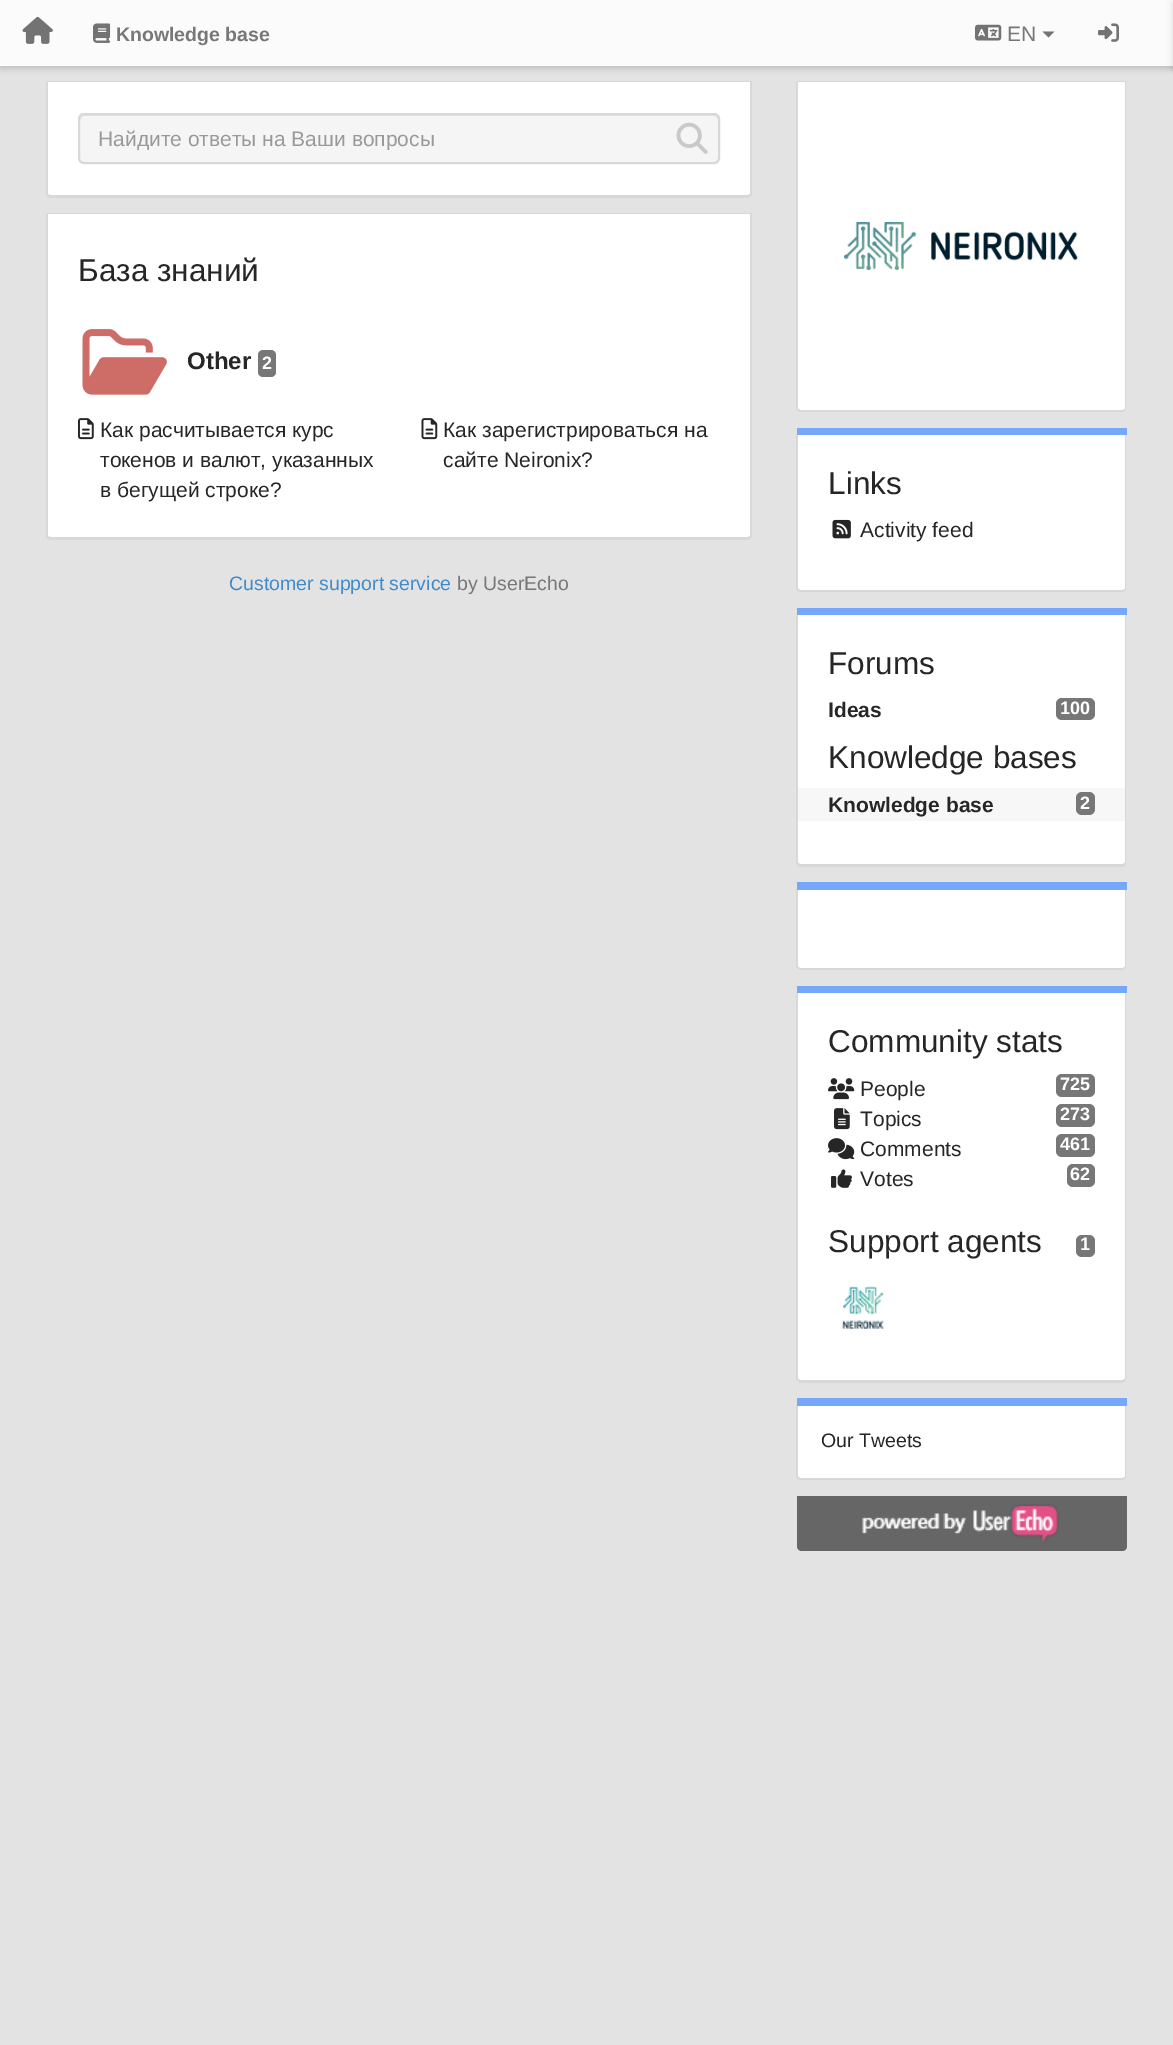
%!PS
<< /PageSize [1173 2045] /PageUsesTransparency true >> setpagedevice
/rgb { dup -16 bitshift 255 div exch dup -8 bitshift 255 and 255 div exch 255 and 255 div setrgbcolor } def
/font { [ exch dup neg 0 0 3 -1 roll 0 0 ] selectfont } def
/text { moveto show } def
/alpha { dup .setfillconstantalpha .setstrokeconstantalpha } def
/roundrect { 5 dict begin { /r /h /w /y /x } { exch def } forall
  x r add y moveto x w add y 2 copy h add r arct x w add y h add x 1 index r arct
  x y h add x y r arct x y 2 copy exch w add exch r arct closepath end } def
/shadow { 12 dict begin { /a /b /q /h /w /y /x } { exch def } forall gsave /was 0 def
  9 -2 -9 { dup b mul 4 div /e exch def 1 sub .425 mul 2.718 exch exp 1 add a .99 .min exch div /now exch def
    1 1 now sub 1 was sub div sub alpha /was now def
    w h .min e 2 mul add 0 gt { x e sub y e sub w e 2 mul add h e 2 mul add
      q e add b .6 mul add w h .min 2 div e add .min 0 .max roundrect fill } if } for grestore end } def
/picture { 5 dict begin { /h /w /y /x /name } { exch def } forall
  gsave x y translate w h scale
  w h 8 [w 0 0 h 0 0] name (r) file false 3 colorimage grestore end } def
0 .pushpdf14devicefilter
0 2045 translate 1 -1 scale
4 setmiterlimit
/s1 { /LiberationSans-Bold 19.5 font 16#777777 rgb } def
/s2 { /LiberationSans-Regular 21 font 16#777777 rgb } def
/s3 { /LiberationSans-Regular 21 font 16#999999 rgb } def
/s4 { /LiberationSans-Regular 31.5 font 16#262626 rgb } def
/s5 { /LiberationSans-Bold 24 font 16#262626 rgb } def
/s6 { /LiberationSans-Bold 18 font 16#FFFFFF rgb } def
/s7 { /LiberationSans-Regular 21 font 16#262626 rgb } def
/s8 { /LiberationSans-Regular 19.5 font 16#428BCA rgb } def
/s9 { /LiberationSans-Regular 19.5 font 16#777777 rgb } def
/s10 { /LiberationSans-Bold 21 font 16#262626 rgb } def
/s11 { /LiberationSans-Regular 19.5 font 16#262626 rgb } def
16#E3E3E3 rgb
0 0 1173 2045 rectfill
16#000000 rgb
0 3 1173 66 0 3 0.15 shadow
16#FBFBFB rgb
0 0 1173 66 rectfill
(pic1.raw) 22 16 31 28 picture
(pic2.raw) 93 23 18 20 picture
s1
(Knowledge base) 116 41 text
(pic3.raw) 975 24 27 17 picture
s2
(EN) 1007 41 text
16#737373 rgb
1042.5 31.5 moveto 1054.5 31.5 lineto 1048.5 37.5 lineto closepath fill
(pic4.raw) 1098 23 21 19 picture
16#000000 rgb
1173 3 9 66 0 3 0.15 shadow
16#D8D8D8 rgb
47 81 705 1 rectfill
16#FFFFFF rgb
48 82 moveto 750 82 lineto 750 194 lineto 750 194 749 195 747 195 curveto 51 195 lineto 49 195 48 194 48 194 curveto closepath fill
16#D8D8D8 rgb
46 82 moveto 752 82 lineto 752 194 lineto 752 196 749 198 747 198 curveto 51 198 lineto 49 198 46 196 46 194 curveto closepath 48 82 moveto 750 82 lineto 750 194 lineto 750 194 749 195 747 195 curveto 51 195 lineto 49 195 48 194 48 194 curveto closepath eofill
16#F5F5F5 rgb
78 113 642 51 6 roundrect fill
16#E3E3E3 rgb
84 116 moveto 714 116 lineto 716 116 718 118 718 120 curveto 718 160 lineto 719 159 719 158 719 157 curveto 719 119 lineto 719 116 717 114 714 114 curveto 85 114 lineto 82 114 80 116 80 119 curveto 80 120 lineto 80 118 82 116 84 116 curveto closepath fill
16#D8D8D8 rgb
2 setlinewidth
79 114 640 49 5 roundrect stroke
gsave
98 126 576 24 rectclip
s3
(Найдите ответы на Ваши вопросы) 98 146 text
grestore
(pic5.raw) 676 122 32 32 picture
47 213 705 1 rectfill
16#FFFFFF rgb
48 214 moveto 750 214 lineto 750 536 lineto 750 536 749 537 747 537 curveto 51 537 lineto 49 537 48 536 48 536 curveto closepath fill
16#D8D8D8 rgb
46 214 moveto 752 214 lineto 752 536 lineto 752 538 749 540 747 540 curveto 51 540 lineto 49 540 46 538 46 536 curveto closepath 48 214 moveto 750 214 lineto 750 536 lineto 750 536 749 537 747 537 curveto 51 537 lineto 49 537 48 536 48 536 curveto closepath eofill
s4
(База знаний) 78 281 text
(pic6.raw) 82 329 85 66 picture
s5
(Other) 187 369 text
16#777777 rgb
258 350 18 27 5 roundrect fill
s6
(2) 262 369 text
(pic7.raw) 78 418 16 22 picture
s7
(Как расчитывается курс) 100 437 text
(токенов и валют, указанных) 100 467 text
(в бегущей строке?) 100 497 text
(pic8.raw) 421 418 17 22 picture
(Как зарегистрироваться на) 443 437 text
(сайте Neironix?) 443 467 text
s8
(Customer support service) 229 590 text
s9
(by UserEcho) 457 590 text
16#D8D8D8 rgb
797 81 330 2 rectfill
16#FFFFFF rgb
798 82 moveto 1125 82 lineto 1125 408 lineto 1125 409 1124 410 1122 410 curveto 801 410 lineto 799 410 798 409 798 408 curveto closepath fill
16#D8D8D8 rgb
796 82 moveto 1126 82 lineto 1126 408 lineto 1126 410 1124 412 1122 412 curveto 801 412 lineto 799 412 796 410 796 408 curveto closepath 798 82 moveto 1125 82 lineto 1125 408 lineto 1125 409 1124 410 1122 410 curveto 801 410 lineto 799 410 798 409 798 408 curveto closepath eofill
(pic9.raw) 844 222 234 48 picture
16#76A7FA rgb
797 428 330 7 rectfill
16#FFFFFF rgb
798 435 moveto 1125 435 lineto 1125 588 lineto 1125 589 1124 590 1122 590 curveto 801 590 lineto 799 590 798 589 798 588 curveto closepath fill
16#D8D8D8 rgb
796 435 moveto 1126 435 lineto 1126 588 lineto 1126 590 1124 592 1122 592 curveto 801 592 lineto 799 592 796 590 796 588 curveto closepath 798 435 moveto 1125 435 lineto 1125 588 lineto 1125 589 1124 590 1122 590 curveto 801 590 lineto 799 590 798 589 798 588 curveto closepath eofill
s4
(Links) 828 494 text
(pic10.raw) 832 519 19 20 picture
s7
(Activity feed) 860 537 text
16#76A7FA rgb
797 608 330 7 rectfill
16#FFFFFF rgb
798 615 moveto 1125 615 lineto 1125 862 lineto 1125 863 1124 864 1122 864 curveto 801 864 lineto 799 864 798 863 798 862 curveto closepath fill
16#D8D8D8 rgb
796 615 moveto 1126 615 lineto 1126 862 lineto 1126 865 1124 867 1122 867 curveto 801 867 lineto 799 867 796 865 796 862 curveto closepath 798 615 moveto 1125 615 lineto 1125 862 lineto 1125 863 1124 864 1122 864 curveto 801 864 lineto 799 864 798 863 798 862 curveto closepath eofill
s4
(Forums) 828 674 text
s10
(Ideas) 828 717 text
16#777777 rgb
1056 698 39 22 6 roundrect fill
s6
(100) 1060 714 text
s4
(Knowledge bases) 828 768 text
16#F7F7F7 rgb
798 788 327 33 rectfill
s10
(Knowledge base) 828 812 text
16#777777 rgb
1076 792 19 23 6 roundrect fill
s6
(2) 1080 809 text
16#76A7FA rgb
797 882 330 8 rectfill
16#FFFFFF rgb
798 890 moveto 1125 890 lineto 1125 966 lineto 1125 967 1124 968 1122 968 curveto 801 968 lineto 799 968 798 967 798 966 curveto closepath fill
16#D8D8D8 rgb
796 890 moveto 1126 890 lineto 1126 966 lineto 1126 968 1124 970 1122 970 curveto 801 970 lineto 799 970 796 968 796 966 curveto closepath 798 890 moveto 1125 890 lineto 1125 966 lineto 1125 967 1124 968 1122 968 curveto 801 968 lineto 799 968 798 967 798 966 curveto closepath eofill
16#76A7FA rgb
797 986 330 7 rectfill
16#FFFFFF rgb
798 993 moveto 1125 993 lineto 1125 1378 lineto 1125 1379 1124 1380 1122 1380 curveto 801 1380 lineto 799 1380 798 1379 798 1378 curveto closepath fill
16#D8D8D8 rgb
796 993 moveto 1126 993 lineto 1126 1378 lineto 1126 1381 1124 1383 1122 1383 curveto 801 1383 lineto 799 1383 796 1381 796 1378 curveto closepath 798 993 moveto 1125 993 lineto 1125 1378 lineto 1125 1379 1124 1380 1122 1380 curveto 801 1380 lineto 799 1380 798 1379 798 1378 curveto closepath eofill
s4
(Community stats) 828 1052 text
(pic11.raw) 828 1078 27 22 picture
s7
(People) 860 1096 text
16#777777 rgb
1056 1074 39 23 6 roundrect fill
s6
(725) 1060 1090 text
(pic12.raw) 834 1108 16 22 picture
s7
(Topics) 860 1126 text
16#777777 rgb
1056 1104 39 23 6 roundrect fill
s6
(273) 1060 1120 text
(pic13.raw) 828 1138 27 22 picture
s7
(Comments) 860 1156 text
16#777777 rgb
1056 1134 39 23 6 roundrect fill
s6
(461) 1060 1150 text
(pic14.raw) 831 1169 21 19 picture
s7
(Votes) 860 1186 text
16#777777 rgb
1067 1164 28 23 6 roundrect fill
s6
(62) 1070 1180 text
s4
(Support agents) 828 1252 text
16#777777 rgb
1076 1235 19 22 6 roundrect fill
s6
(1) 1080 1250 text
(pic15.raw) 841 1286 43 44 picture
16#76A7FA rgb
797 1398 330 8 rectfill
16#FFFFFF rgb
798 1406 moveto 1125 1406 lineto 1125 1476 lineto 1125 1477 1124 1478 1122 1478 curveto 801 1478 lineto 799 1478 798 1477 798 1476 curveto closepath fill
16#D8D8D8 rgb
796 1406 moveto 1126 1406 lineto 1126 1476 lineto 1126 1478 1124 1480 1122 1480 curveto 801 1480 lineto 799 1480 796 1478 796 1476 curveto closepath 798 1406 moveto 1125 1406 lineto 1125 1476 lineto 1125 1477 1124 1478 1122 1478 curveto 801 1478 lineto 799 1478 798 1477 798 1476 curveto closepath eofill
s11
(Our Tweets) 821 1447 text
16#666666 rgb
797 1496 moveto 1127 1496 lineto 1127 1546 lineto 1127 1549 1125 1551 1122 1551 curveto 802 1551 lineto 799 1551 797 1549 797 1546 curveto closepath fill
(pic16.raw) 862 1504 197 39 picture
.poppdf14devicefilter showpage
